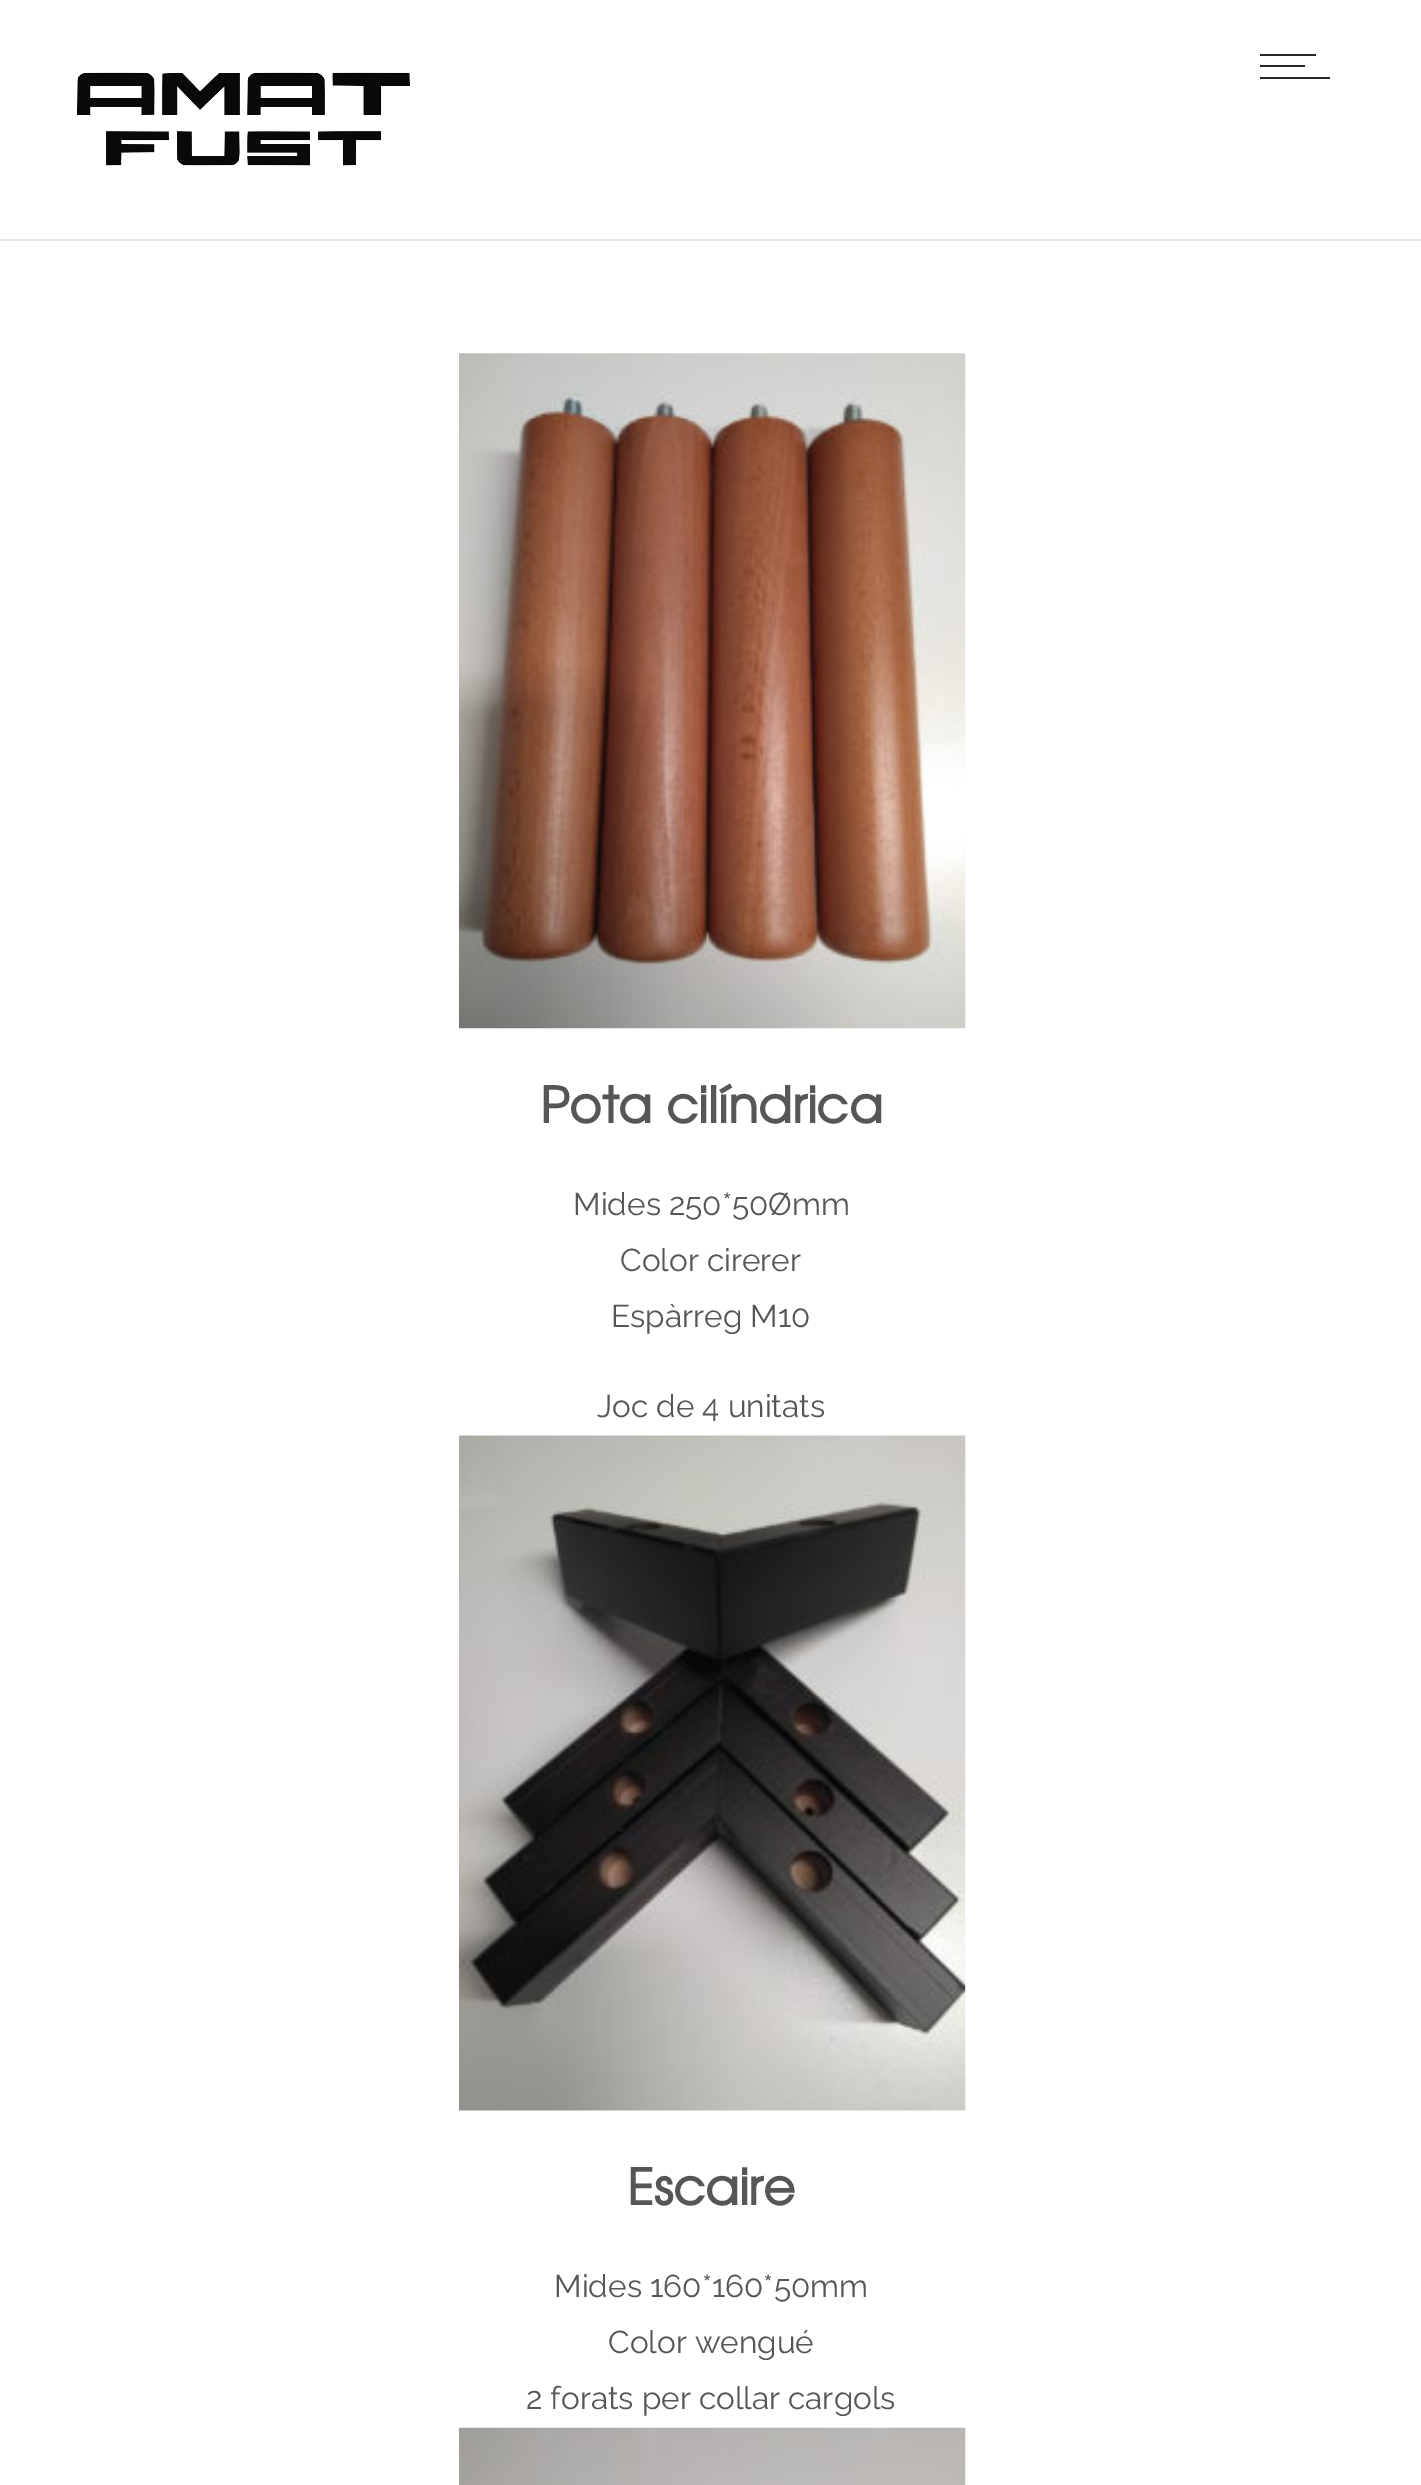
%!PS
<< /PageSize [1421 2485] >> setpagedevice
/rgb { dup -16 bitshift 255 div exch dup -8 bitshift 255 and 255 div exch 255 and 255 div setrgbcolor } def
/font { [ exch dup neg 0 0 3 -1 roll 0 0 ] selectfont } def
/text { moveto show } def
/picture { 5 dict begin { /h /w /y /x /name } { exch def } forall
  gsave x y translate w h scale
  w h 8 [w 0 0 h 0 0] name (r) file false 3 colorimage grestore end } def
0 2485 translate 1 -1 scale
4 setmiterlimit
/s1 { /TeXGyreAdventor-Bold 49.5 font 16#565656 rgb } def
/s2 { /Raleway-Regular 31.5 font 16#565656 rgb } def
16#FFFFFF rgb
0 0 1421 2485 rectfill
16#EAE9EA rgb
0 239 1421 2 rectfill
16#28262B rgb
1260 54 56 2 rectfill
1260 65 45 2 rectfill
1260 77 70 2 rectfill
(pic1.raw) 77 72 333 94 picture
(pic2.raw) 459 353 507 676 picture
s1
(Pota cilíndrica) 540 1123 text
s2
(Mides 250*50Ømm) 573 1215 text
(Color cirerer) 620 1271 text
(Espàrreg M10) 611 1327 text
(Joc de 4 unitats) 597 1417 text
(pic3.raw) 459 1435 507 676 picture
s1
(Escaire) 627 2205 text
s2
(Mides 160*160*50mm) 554 2297 text
(Color wengué) 608 2353 text
(2 forats per collar cargols) 526 2409 text
(pic4.raw) 459 2427 507 58 picture
showpage
